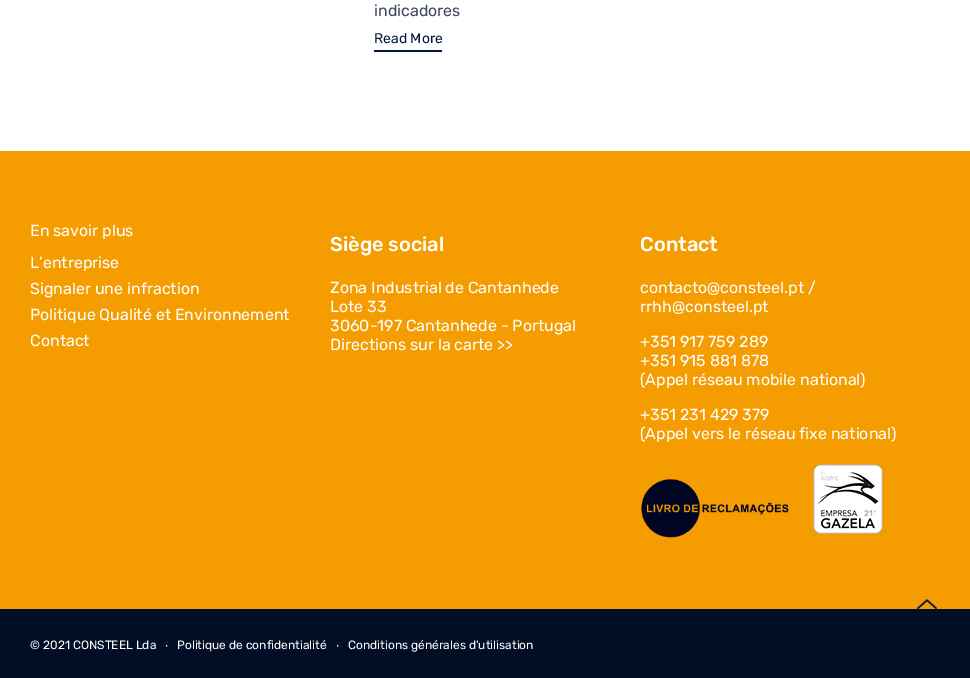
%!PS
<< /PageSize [970 678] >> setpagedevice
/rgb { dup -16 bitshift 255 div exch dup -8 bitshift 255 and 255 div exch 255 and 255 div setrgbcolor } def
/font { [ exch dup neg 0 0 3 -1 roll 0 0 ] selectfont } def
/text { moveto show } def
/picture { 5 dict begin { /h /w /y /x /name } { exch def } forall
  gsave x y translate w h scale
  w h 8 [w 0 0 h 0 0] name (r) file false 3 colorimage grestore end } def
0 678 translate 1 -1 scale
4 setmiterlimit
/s1 { /Rubik-Regular 16 font 16#3F485D rgb } def
/s2 { /Rubik-Regular 14 font 16#06163A rgb } def
/s3 { /Rubik-Regular 16 font 16#FFFFFF rgb } def
/s4 { /Rubik-Light 20 font 16#FFFFFF rgb } def
/s5 { /Rubik-Regular 12 font 16#FFFFFF rgb } def
/s6 { /LiberationSans-Regular 12 font 16#FFFFFF rgb } def
16#FFFFFF rgb
0 0 970 678 rectfill
s1
(indicadores) 374 16 text
16#06163A rgb
374 50 68 2 rectfill
s2
(Read More) 374 43 text
16#F59C00 rgb
0 151 970 458 rectfill
s3
(En savoir plus) 30 236 text
(L’entreprise) 30 268 text
(Signaler une infraction) 30 294 text
(Politique Qualité et Environnement) 30 320 text
(Contact) 30 346 text
s4
(Siège social) 330 251 text
s3
(Zona Industrial de Cantanhede) 330 293 text
(Lote 33) 330 312 text
(3060-197 Cantanhede - Portugal) 330 331 text
(Directions sur la carte >>) 330 350 text
s4
(Contact) 640 251 text
s3
(contacto@consteel.pt /) 640 293 text
(rrhh@consteel.pt) 640 312 text
(+351 917 759 289) 640 347 text
(+351 915 881 878) 640 366 text
(\(Appel réseau mobile national\)) 640 385 text
(+351 231 429 379) 640 420 text
(\(Appel vers le réseau fixe national\)) 640 439 text
(pic1.raw) 641 479 148 59 picture
(pic2.raw) 813 464 70 70 picture
16#020D26 rgb
0 609 970 69 rectfill
s5
(© 2021 CONSTEEL Lda) 30 649 text
s6
(∙) 165 649 text
s5
(Politique de confidentialité) 177 649 text
s6
(∙) 336 649 text
s5
(Conditions générales d'utilisation) 348 649 text
(pic3.raw) 917 599 20 10 picture
showpage
